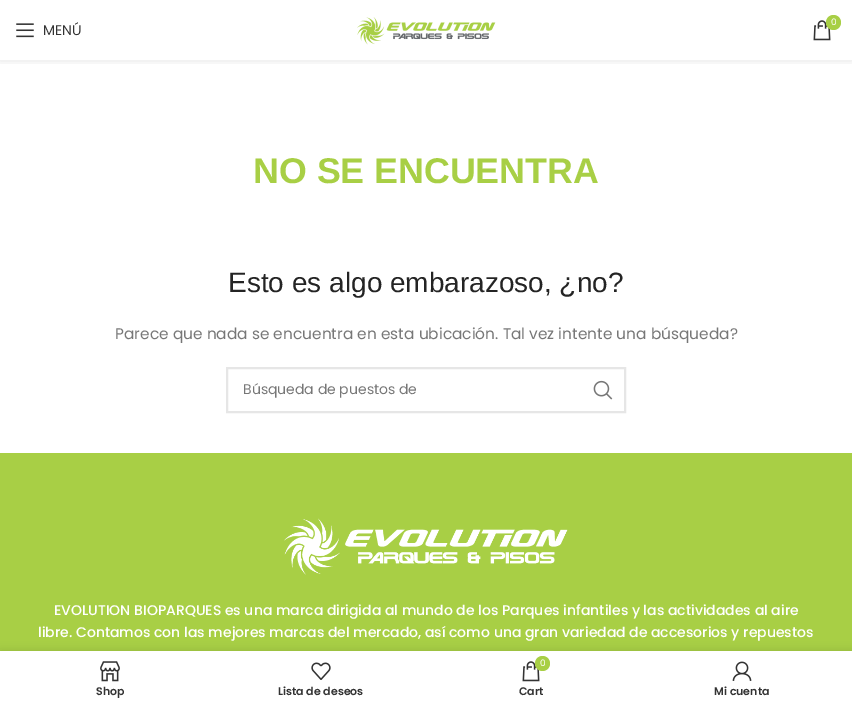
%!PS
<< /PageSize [852 706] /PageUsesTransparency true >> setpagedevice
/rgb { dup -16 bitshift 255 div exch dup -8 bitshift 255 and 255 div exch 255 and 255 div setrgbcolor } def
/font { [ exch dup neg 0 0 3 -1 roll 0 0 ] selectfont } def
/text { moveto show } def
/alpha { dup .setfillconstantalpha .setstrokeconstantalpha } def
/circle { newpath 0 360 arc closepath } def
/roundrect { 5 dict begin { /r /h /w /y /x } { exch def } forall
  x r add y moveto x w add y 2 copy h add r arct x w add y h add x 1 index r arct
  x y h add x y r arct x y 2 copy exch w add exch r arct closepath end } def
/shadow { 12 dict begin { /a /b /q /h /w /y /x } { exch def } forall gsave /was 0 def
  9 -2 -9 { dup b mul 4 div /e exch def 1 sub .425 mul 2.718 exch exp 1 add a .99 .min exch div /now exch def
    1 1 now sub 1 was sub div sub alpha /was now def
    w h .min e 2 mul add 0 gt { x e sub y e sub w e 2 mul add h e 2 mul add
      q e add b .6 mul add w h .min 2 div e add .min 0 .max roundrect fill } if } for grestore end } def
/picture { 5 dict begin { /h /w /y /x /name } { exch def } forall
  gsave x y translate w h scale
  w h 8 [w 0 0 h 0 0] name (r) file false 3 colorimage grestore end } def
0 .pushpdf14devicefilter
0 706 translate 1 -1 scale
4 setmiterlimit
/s1 { /Poppins-Regular 14 font 16#333333 rgb } def
/s2 { /Poppins-Regular 9 font 16#FFFFFF rgb } def
/s3 { /LiberationSans-Bold 35.75 font 16#A8CF45 rgb } def
/s4 { /LiberationSans-Regular 28 font 16#242424 rgb } def
/s5 { /Poppins-Regular 15.4 font 16#777777 rgb } def
/s6 { /Poppins-Regular 14 font 16#777777 rgb } def
/s7 { /Poppins-Medium 14 font 16#FFFFFF rgb } def
/s8 { /Poppins-SemiBold 11 font 16#333333 rgb } def
16#FFFFFF rgb
0 0 852 706 rectfill
gsave
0 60 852 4 rectclip
16#000000 rgb
0 1 852 60 0 4 0.1 shadow
grestore
(pic1.raw) 16 23 18 15 picture
s1
(MENÚ) 43 35 text
(pic2.raw) 357 17 139 28 picture
(pic3.raw) 813 20 18 21 picture
16#A8CF45 rgb
833.5 22.5 7.5 circle fill
s2
(0) 831 25 text
s3
(NO SE ENCUENTRA) 253 183 text
s4
(Esto es algo embarazoso, ¿no?) 228 292 text
s5
(Parece que nada se encuentra en esta ubicación. Tal vez intente una búsqueda?) 115 339 text
16#E6E6E6 rgb
2 setlinewidth
227 368 398 44 rectstroke
s6
(Búsqueda de puestos de) 243 394 text
(pic4.raw) 593 380 20 20 picture
16#A8CF45 rgb
0 453 852 198 rectfill
(pic5.raw) 284 518 284 57 picture
s7
(EVOLUTION BIOPARQUES es una marca dirigida al mundo de los Parques infantiles y las actividades al aire) 54 615 text
(libre. Contamos con las mejores marcas del mercado, así como una gran variedad de accesorios y repuestos) 38 637 text
16#000000 rgb
0 651 852 55 0 4.5 0.12 shadow
16#FFFFFF rgb
0 651 852 55 rectfill
(pic6.raw) 100 661 20 21 picture
s8
(Shop) 96 695 text
(pic7.raw) 311 662 20 18 picture
(Lista de deseos) 278 695 text
(pic3.raw) 522 661 18 21 picture
16#A8CF45 rgb
542.5 663.5 7.5 circle fill
s2
(0) 540 666 text
s8
(Cart) 519 695 text
(pic8.raw) 732 661 20 20 picture
(Mi cuenta) 714 695 text
.poppdf14devicefilter showpage
